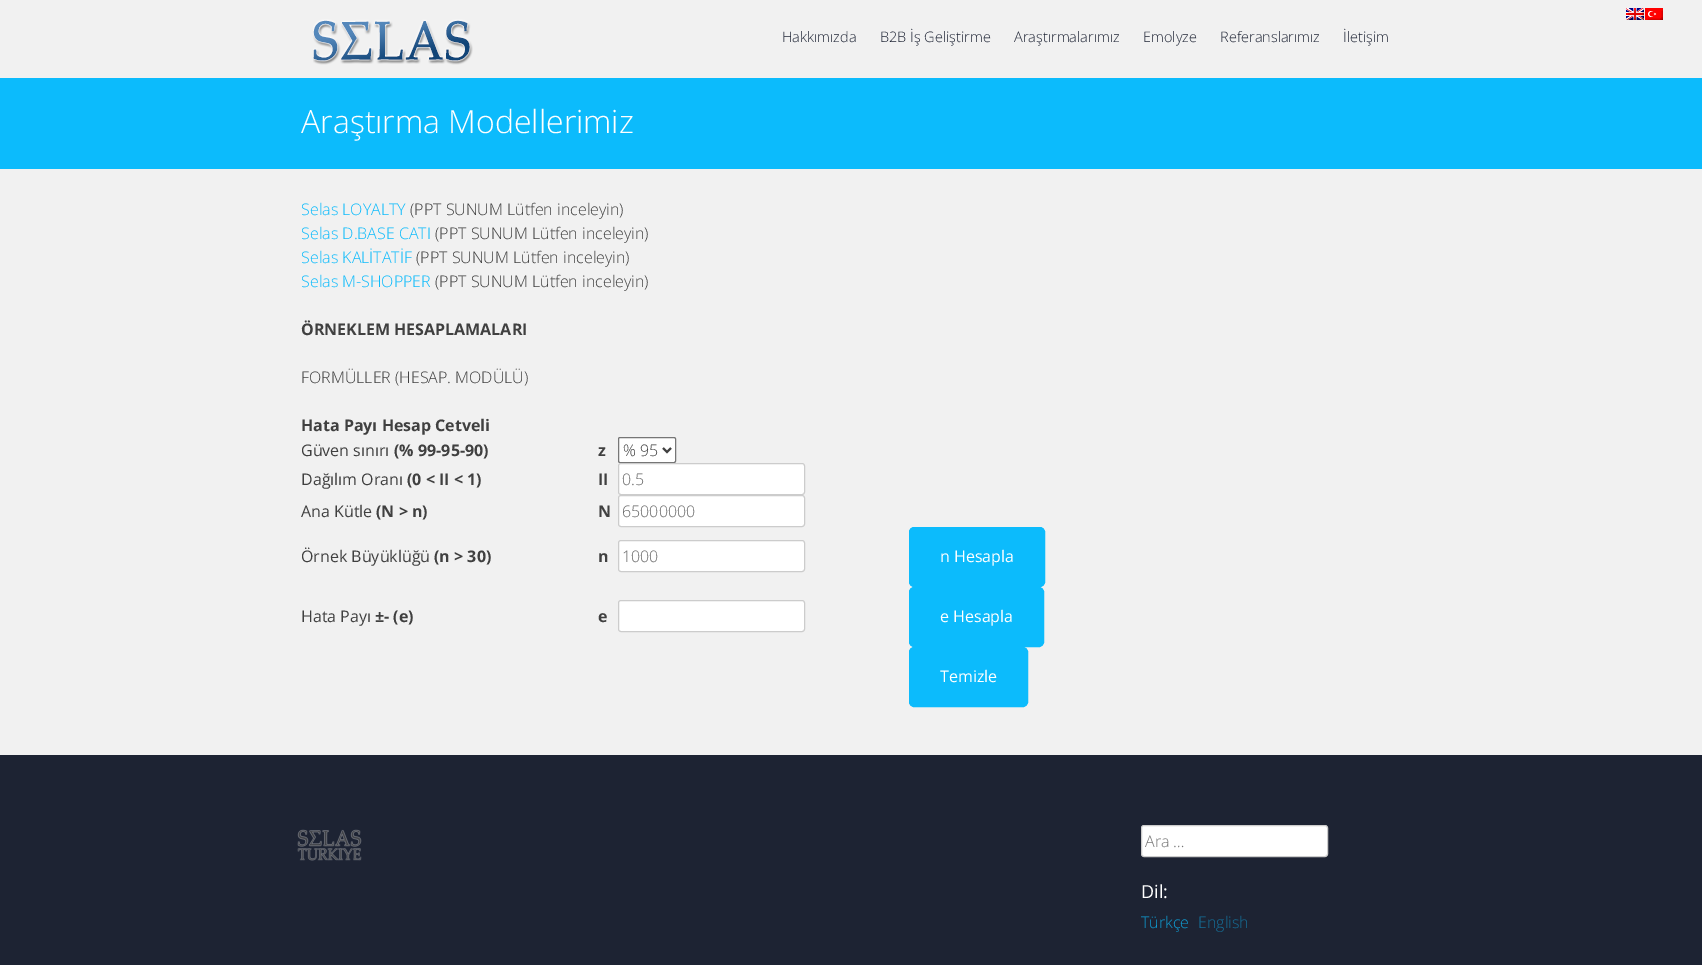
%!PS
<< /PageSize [1702 965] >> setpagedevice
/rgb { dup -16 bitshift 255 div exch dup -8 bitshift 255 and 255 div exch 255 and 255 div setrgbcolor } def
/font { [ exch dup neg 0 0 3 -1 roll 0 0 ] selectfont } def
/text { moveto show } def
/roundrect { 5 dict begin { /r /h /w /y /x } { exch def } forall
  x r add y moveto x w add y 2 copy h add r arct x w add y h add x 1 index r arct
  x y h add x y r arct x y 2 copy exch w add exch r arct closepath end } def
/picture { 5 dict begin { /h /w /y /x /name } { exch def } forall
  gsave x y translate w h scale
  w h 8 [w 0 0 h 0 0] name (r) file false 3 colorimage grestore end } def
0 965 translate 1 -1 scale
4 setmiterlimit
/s1 { /OpenSans-Light 14.5 font 16#212737 rgb } def
/s2 { /OpenSans-Light 32 font 16#FFFFFF rgb } def
/s3 { /OpenSans-Light 16 font 16#0CBBFC rgb } def
/s4 { /OpenSans-Light 16 font 16#404040 rgb } def
/s5 { /OpenSans-Bold 16 font 16#404040 rgb } def
/s6 { /OpenSans-Regular 16 font 16#404040 rgb } def
/s7 { /OpenSans-Light 16 font 16#666666 rgb } def
/s8 { /OpenSans-Regular 16 font 16#FFFFFF rgb } def
/s9 { /OpenSans-Light 16 font 16#757575 rgb } def
/s10 { /OpenSans-Regular 18 font 16#FFFFFF rgb } def
/s11 { /OpenSans-Light 16 font 16#0F9DD4 rgb } def
/s12 { /OpenSans-Light 16 font 16#156F98 rgb } def
16#F1F1F1 rgb
0 0 1702 965 rectfill
(pic1.raw) 1626 8 18 12 picture
(pic2.raw) 1645 8 18 12 picture
(pic3.raw) 313 19 160 46 picture
s1
(Hakkımızda) 782 42 text
(B2B İş Geliştirme) 880 42 text
(Araştırmalarımız) 1014 42 text
(Emolyze) 1143 42 text
(Referanslarımız) 1220 42 text
(İletişim) 1343 42 text
16#0CBBFC rgb
0 78 1702 91 rectfill
s2
(Araştırma Modellerimiz) 301 133 text
s3
(Selas LOYALTY) 301 215 text
s4
(\(PPT SUNUM Lütfen inceleyin\)) 410 215 text
s3
(Selas D.BASE CATI) 301 239 text
s4
(\(PPT SUNUM Lütfen inceleyin\)) 435 239 text
s3
(Selas KALİTATİF) 301 263 text
s4
(\(PPT SUNUM Lütfen inceleyin\)) 416 263 text
s3
(Selas M-SHOPPER) 301 287 text
s4
(\(PPT SUNUM Lütfen inceleyin\)) 435 287 text
s5
(ÖRNEKLEM HESAPLAMALARI) 301 335 text
s4
(FORMÜLLER \(HESAP. MODÜLÜ\)) 301 383 text
s5
(Hata Payı Hesap Cetveli) 301 431 text
s6
(Güven sınırı) 301 456 text
s5
(\(% 99-95-90\)) 394 456 text
(z) 598 456 text
16#FFFFFF rgb
618.5 437.5 57 25 1.5 roundrect gsave fill grestore
16#767676 rgb
stroke
16#404040 rgb
2 setlinewidth
663 448 moveto 667 452 lineto 671 448 lineto stroke
s4
(% 95) 623 456 text
s6
(Dağılım Oranı) 301 485 text
s5
(\(0 < II < 1\)) 407 485 text
(II) 598 485 text
16#FFFFFF rgb
618.5 463.5 186 31 2.5 roundrect gsave fill grestore
16#CCCCCC rgb
1 setlinewidth
stroke
s7
(0.5) 622 485 text
s6
(Ana Kütle) 301 517 text
s5
(\(N > n\)) 376 517 text
(N) 598 517 text
16#FFFFFF rgb
618.5 495.5 186 31 2.5 roundrect gsave fill grestore
16#CCCCCC rgb
stroke
s7
(65000000) 622 517 text
s6
(Örnek Büyüklüğü) 301 562 text
s5
(\(n > 30\)) 434 562 text
(n) 598 562 text
16#FFFFFF rgb
618.5 540.5 186 31 2.5 roundrect gsave fill grestore
16#CCCCCC rgb
stroke
s7
(1000) 622 562 text
16#0CBBFC rgb
909.5 527.5 135 59 4.5 roundrect gsave fill grestore
stroke
s8
(n Hesapla) 940 562 text
s6
(Hata Payı) 301 622 text
s5
(±- \(e\)) 375 622 text
(e) 598 622 text
16#FFFFFF rgb
618.5 600.5 186 31 2.5 roundrect gsave fill grestore
16#CCCCCC rgb
stroke
16#0CBBFC rgb
909.5 587.5 134 59 4.5 roundrect gsave fill grestore
stroke
s8
(e Hesapla) 940 622 text
16#0CBBFC rgb
909.5 647.5 118 59 4.5 roundrect gsave fill grestore
stroke
s8
(Temizle) 940 682 text
16#1D2333 rgb
0 755 1702 210 rectfill
(pic4.raw) 297 829 65 32 picture
16#FFFFFF rgb
1141.5 825.5 186 31 2.5 roundrect gsave fill grestore
16#CCCCCC rgb
stroke
s9
(Ara …) 1145 847 text
s10
(Dil:) 1141 898 text
s11
(Türkçe) 1141 928 text
s12
(English) 1198 928 text
showpage
